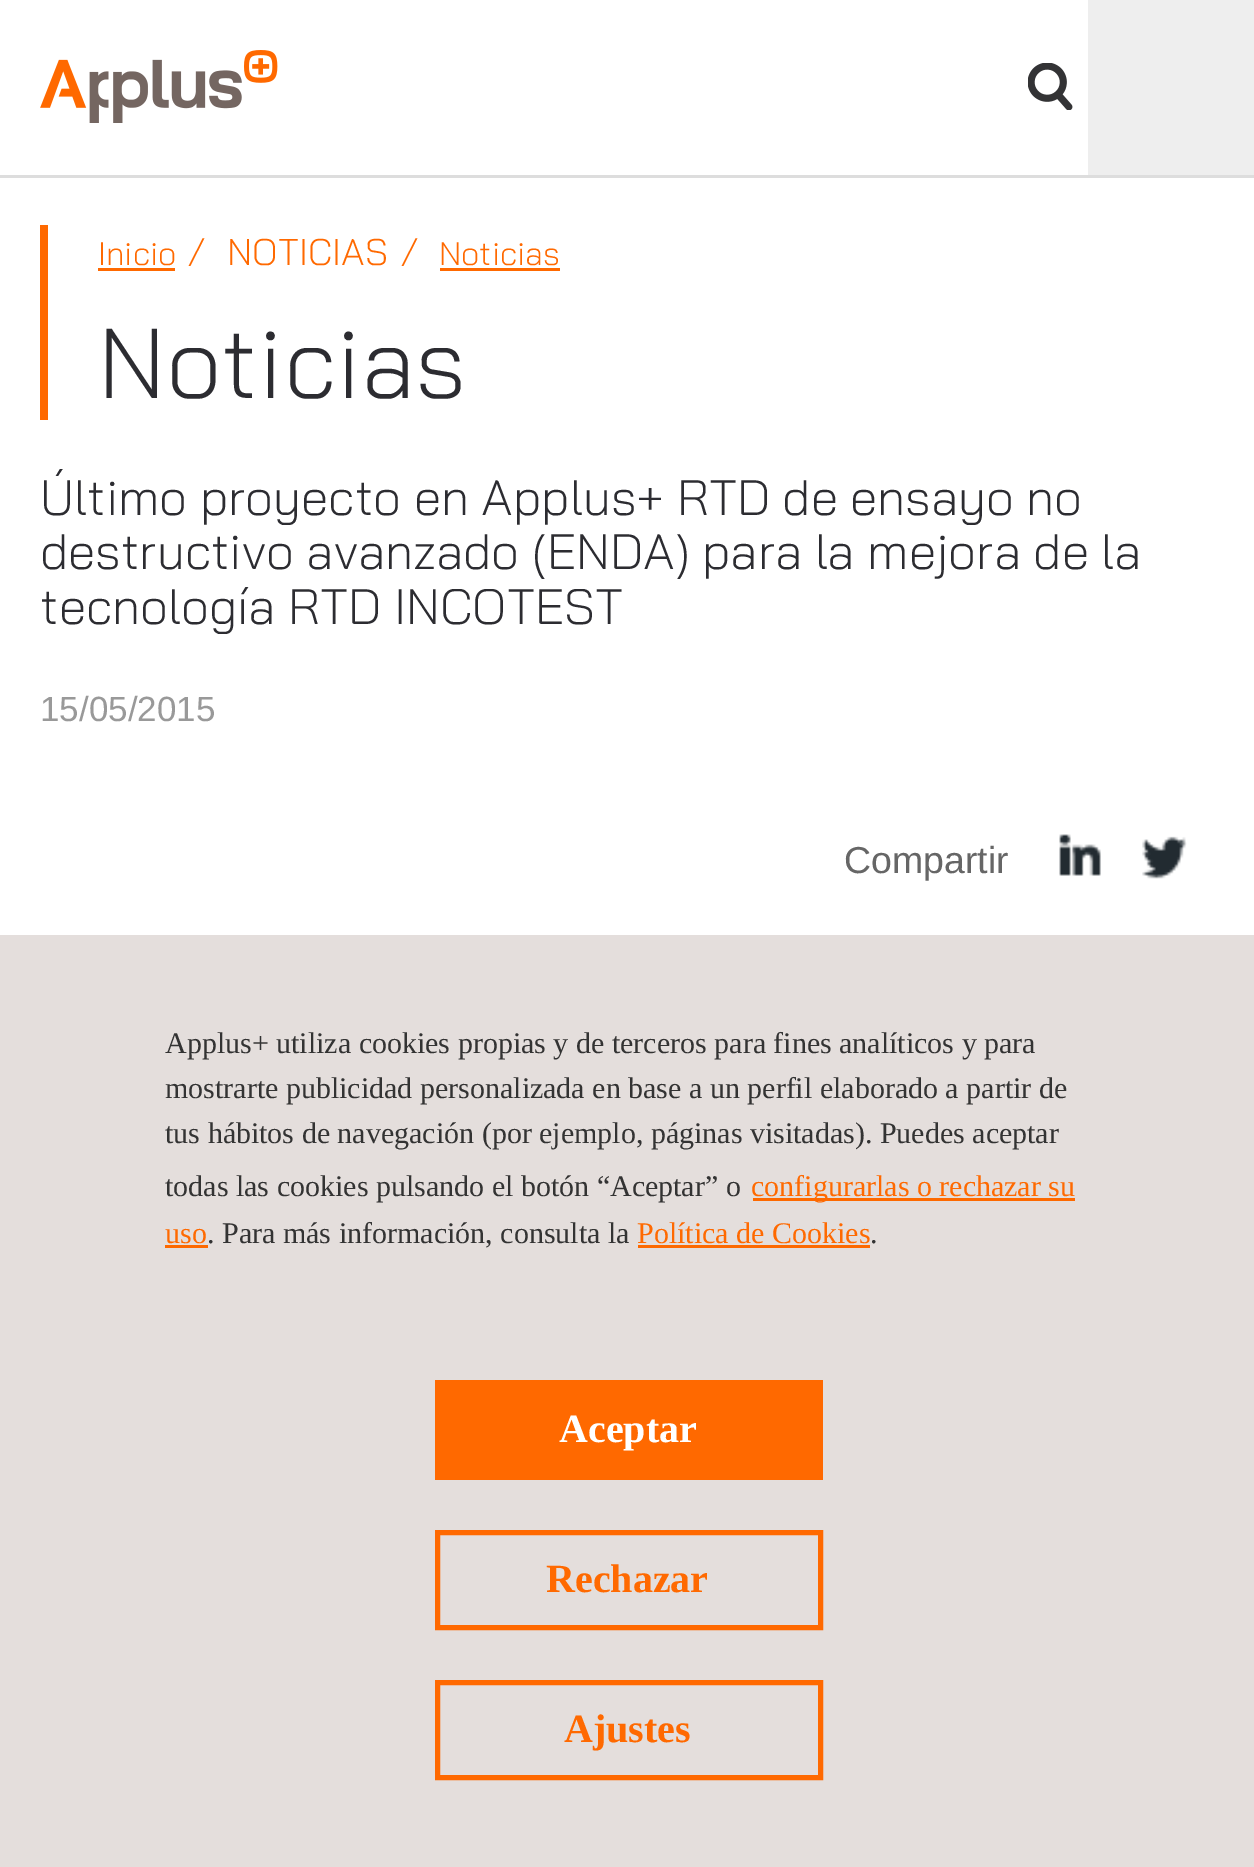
%!PS
<< /PageSize [1254 1867] >> setpagedevice
/rgb { dup -16 bitshift 255 div exch dup -8 bitshift 255 and 255 div exch 255 and 255 div setrgbcolor } def
/font { [ exch dup neg 0 0 3 -1 roll 0 0 ] selectfont } def
/text { moveto show } def
/picture { 5 dict begin { /h /w /y /x /name } { exch def } forall
  gsave x y translate w h scale
  w h 8 [w 0 0 h 0 0] name (r) file false 3 colorimage grestore end } def
0 1867 translate 1 -1 scale
4 setmiterlimit
/s1 { /BaiJamjuree-Light 32.5 font 16#FF6900 rgb } def
/s2 { /BaiJamjuree-Light 37 font 16#FF6900 rgb } def
/s3 { /BaiJamjuree-Light 99 font 16#2C2C31 rgb } def
/s4 { /BaiJamjuree-Light 49.6 font 16#2C2C31 rgb } def
/s5 { /LiberationSans-Regular 35 font 16#999999 rgb } def
/s6 { /LiberationSans-Regular 37.5 font 16#666666 rgb } def
/s7 { /LiberationSerif-Regular 30 font 16#333333 rgb } def
/s8 { /LiberationSerif-Regular 30 font 16#FF6900 rgb } def
/s9 { /LiberationSerif-Bold 40 font 16#FFFFFF rgb } def
/s10 { /LiberationSerif-Bold 40 font 16#FF6900 rgb } def
16#FFFFFF rgb
0 0 1254 1867 rectfill
16#DDDDDD rgb
0 175 1254 3 rectfill
(pic1.raw) 40 50 238 73 picture
(pic2.raw) 1028 63 45 47 picture
16#EEEEEE rgb
1088 0 166 175 rectfill
16#FF6900 rgb
40 225 8 195 rectfill
s1
(Inicio) 98 265 text
98 268 77 3 rectfill
s2
(/) 187 265 text
(NOTICIAS) 227 265 text
(/) 400 265 text
s1
(Noticias) 439 265 text
440 268 120 3 rectfill
s3
(Noticias) 98 398 text
s4
(Último proyecto en Applus+ RTD de ensayo no) 40 515 text
(destructivo avanzado \(ENDA\) para la mejora de la) 40 569 text
(tecnología RTD INCOTEST) 40 624 text
s5
(15/05/2015) 40 721 text
s6
(Compartir) 844 873 text
(pic3.raw) 1059 834 42 42 picture
(pic4.raw) 1142 836 45 43 picture
16#E4DEDC rgb
0 935 1254 932 rectfill
s7
(Applus+ utiliza cookies propias y de terceros para fines analíticos y para) 165 1053 text
(mostrarte publicidad personalizada en base a un perfil elaborado a partir de) 165 1098 text
(tus hábitos de navegación \(por ejemplo, páginas visitadas\). Puedes aceptar) 165 1143 text
(todas las cookies pulsando el botón “Aceptar” o) 165 1196 text
16#FD6900 rgb
753 1198 322 3 rectfill
s8
(configurarlas o rechazar su) 751 1196 text
(uso) 165 1243 text
16#FD6900 rgb
165 1245 43 3 rectfill
s7
(. Para más información, consulta la) 207 1243 text
s8
(Política de Cookies) 637 1243 text
16#FD6900 rgb
638 1245 232 3 rectfill
s7
(.) 870 1243 text
16#FF6900 rgb
435 1380 388 100 rectfill
s9
(Aceptar) 559 1442 text
16#FF6900 rgb
5 setlinewidth
437.5 1532.5 383 95 rectstroke
(Rechazar) 546 1592 text
437.5 1682.5 383 95 rectstroke
(Ajustes) 564 1742 text
showpage
